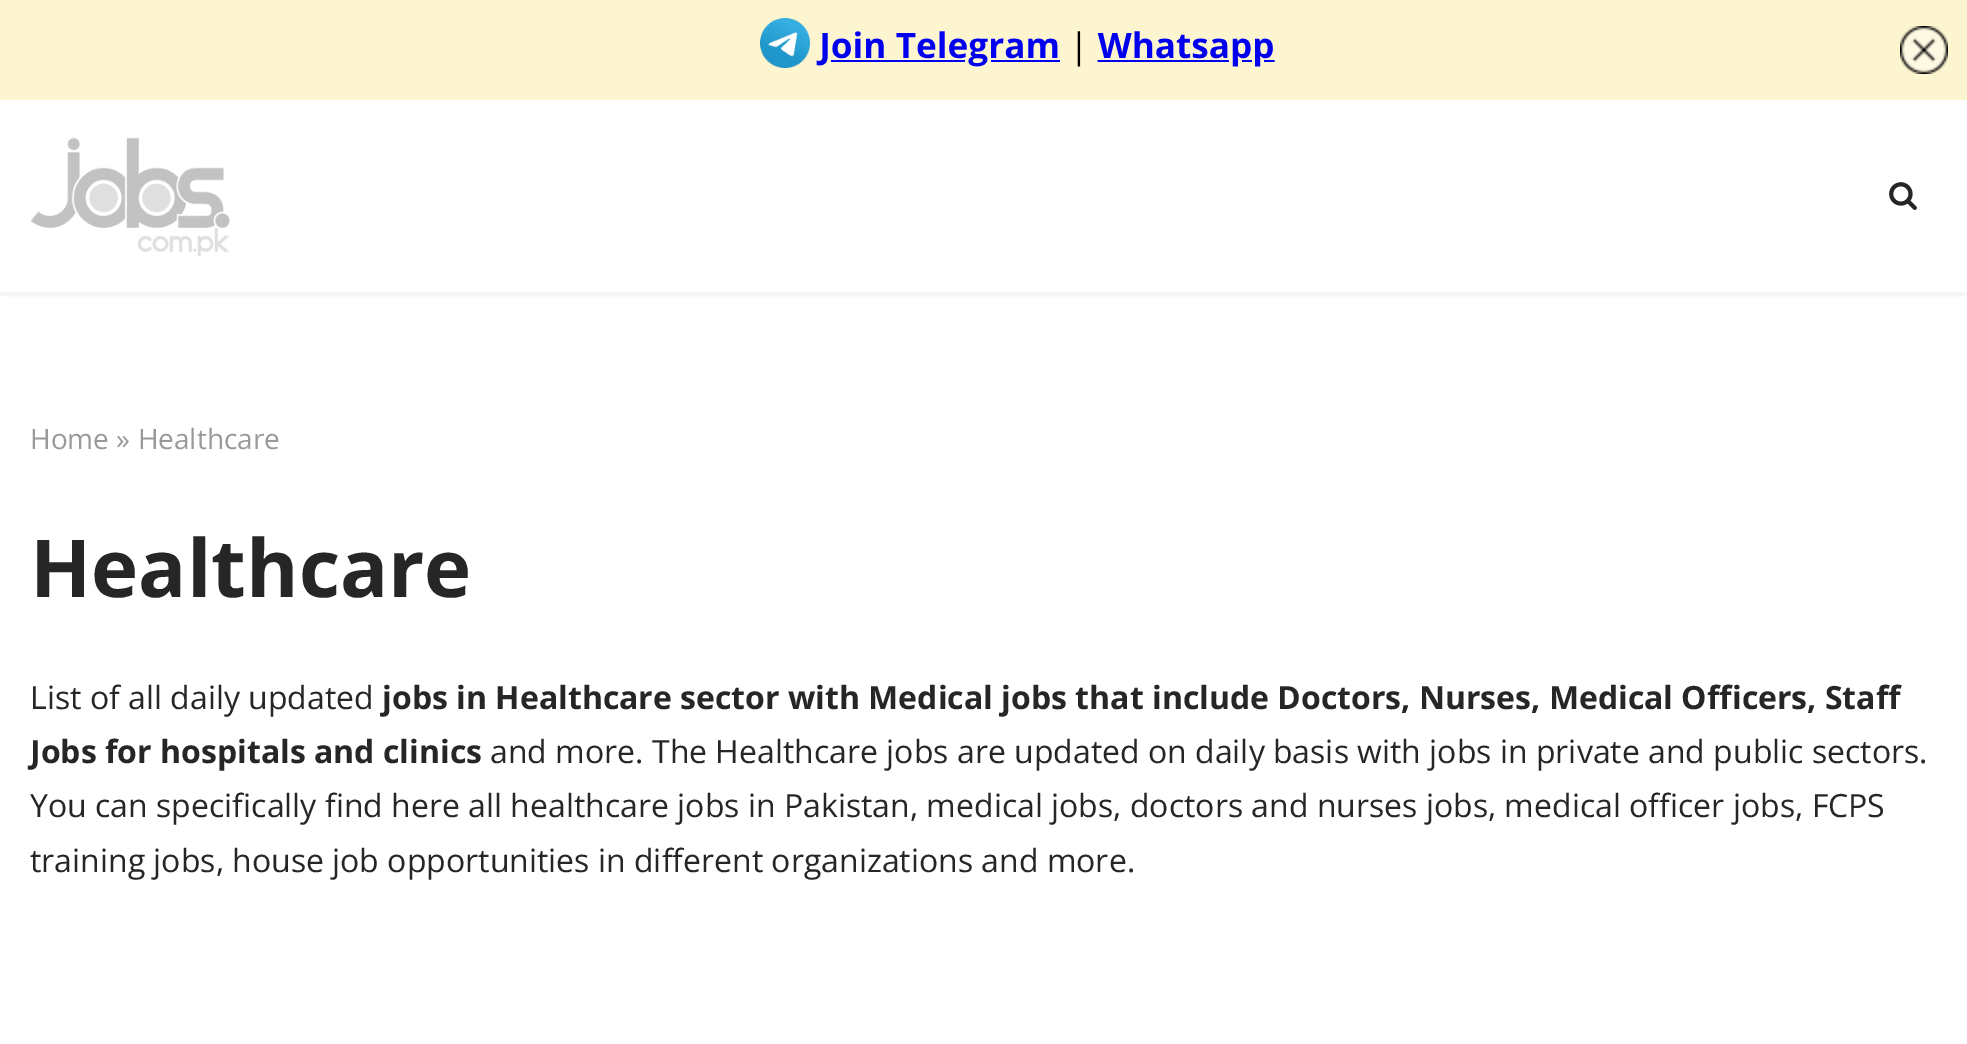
%!PS
<< /PageSize [1967 1044] /PageUsesTransparency true >> setpagedevice
/rgb { dup -16 bitshift 255 div exch dup -8 bitshift 255 and 255 div exch 255 and 255 div setrgbcolor } def
/font { [ exch dup neg 0 0 3 -1 roll 0 0 ] selectfont } def
/text { moveto show } def
/alpha { dup .setfillconstantalpha .setstrokeconstantalpha } def
/roundrect { 5 dict begin { /r /h /w /y /x } { exch def } forall
  x r add y moveto x w add y 2 copy h add r arct x w add y h add x 1 index r arct
  x y h add x y r arct x y 2 copy exch w add exch r arct closepath end } def
/shadow { 12 dict begin { /a /b /q /h /w /y /x } { exch def } forall gsave /was 0 def
  9 -2 -9 { dup b mul 4 div /e exch def 1 sub .425 mul 2.718 exch exp 1 add a .99 .min exch div /now exch def
    1 1 now sub 1 was sub div sub alpha /was now def
    w h .min e 2 mul add 0 gt { x e sub y e sub w e 2 mul add h e 2 mul add
      q e add b .6 mul add w h .min 2 div e add .min 0 .max roundrect fill } if } for grestore end } def
/picture { 5 dict begin { /h /w /y /x /name } { exch def } forall
  gsave x y translate w h scale
  w h 8 [w 0 0 h 0 0] name (r) file false 3 colorimage grestore end } def
0 .pushpdf14devicefilter
0 1044 translate 1 -1 scale
4 setmiterlimit
/s1 { /OpenSans-Regular 28 font 16#999999 rgb } def
/s2 { /OpenSans-Bold 80 font 16#272626 rgb } def
/s3 { /OpenSans-Regular 32 font 16#272626 rgb } def
/s4 { /OpenSans-Bold 32 font 16#272626 rgb } def
16#FFFFFF rgb
0 0 1967 1044 rectfill
gsave
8 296 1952 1 rectclip
16#000000 rgb
0 98 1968 196 0 3 0.1 shadow
grestore
(pic1.raw) 0 0 1967 100 picture
16#F4F5F7 rgb
0 292 1967 4 rectfill
(pic2.raw) 31 137 199 119 picture
(pic3.raw) 1889 182 28 28 picture
s1
(Home » Healthcare) 30 449 text
s2
(Healthcare) 30 597 text
s3
(List of all daily updated) 30 709 text
s4
(jobs in Healthcare sector with Medical jobs that include Doctors, Nurses, Medical Officers, Staff) 382 709 text
(Jobs for hospitals and clinics) 30 763 text
s3
(and more. The Healthcare jobs are updated on daily basis with jobs in private and public sectors.) 490 763 text
(You can specifically find here all healthcare jobs in Pakistan, medical jobs, doctors and nurses jobs, medical officer jobs, FCPS) 30 817 text
(training jobs, house job opportunities in different organizations and more.) 30 872 text
.poppdf14devicefilter showpage
